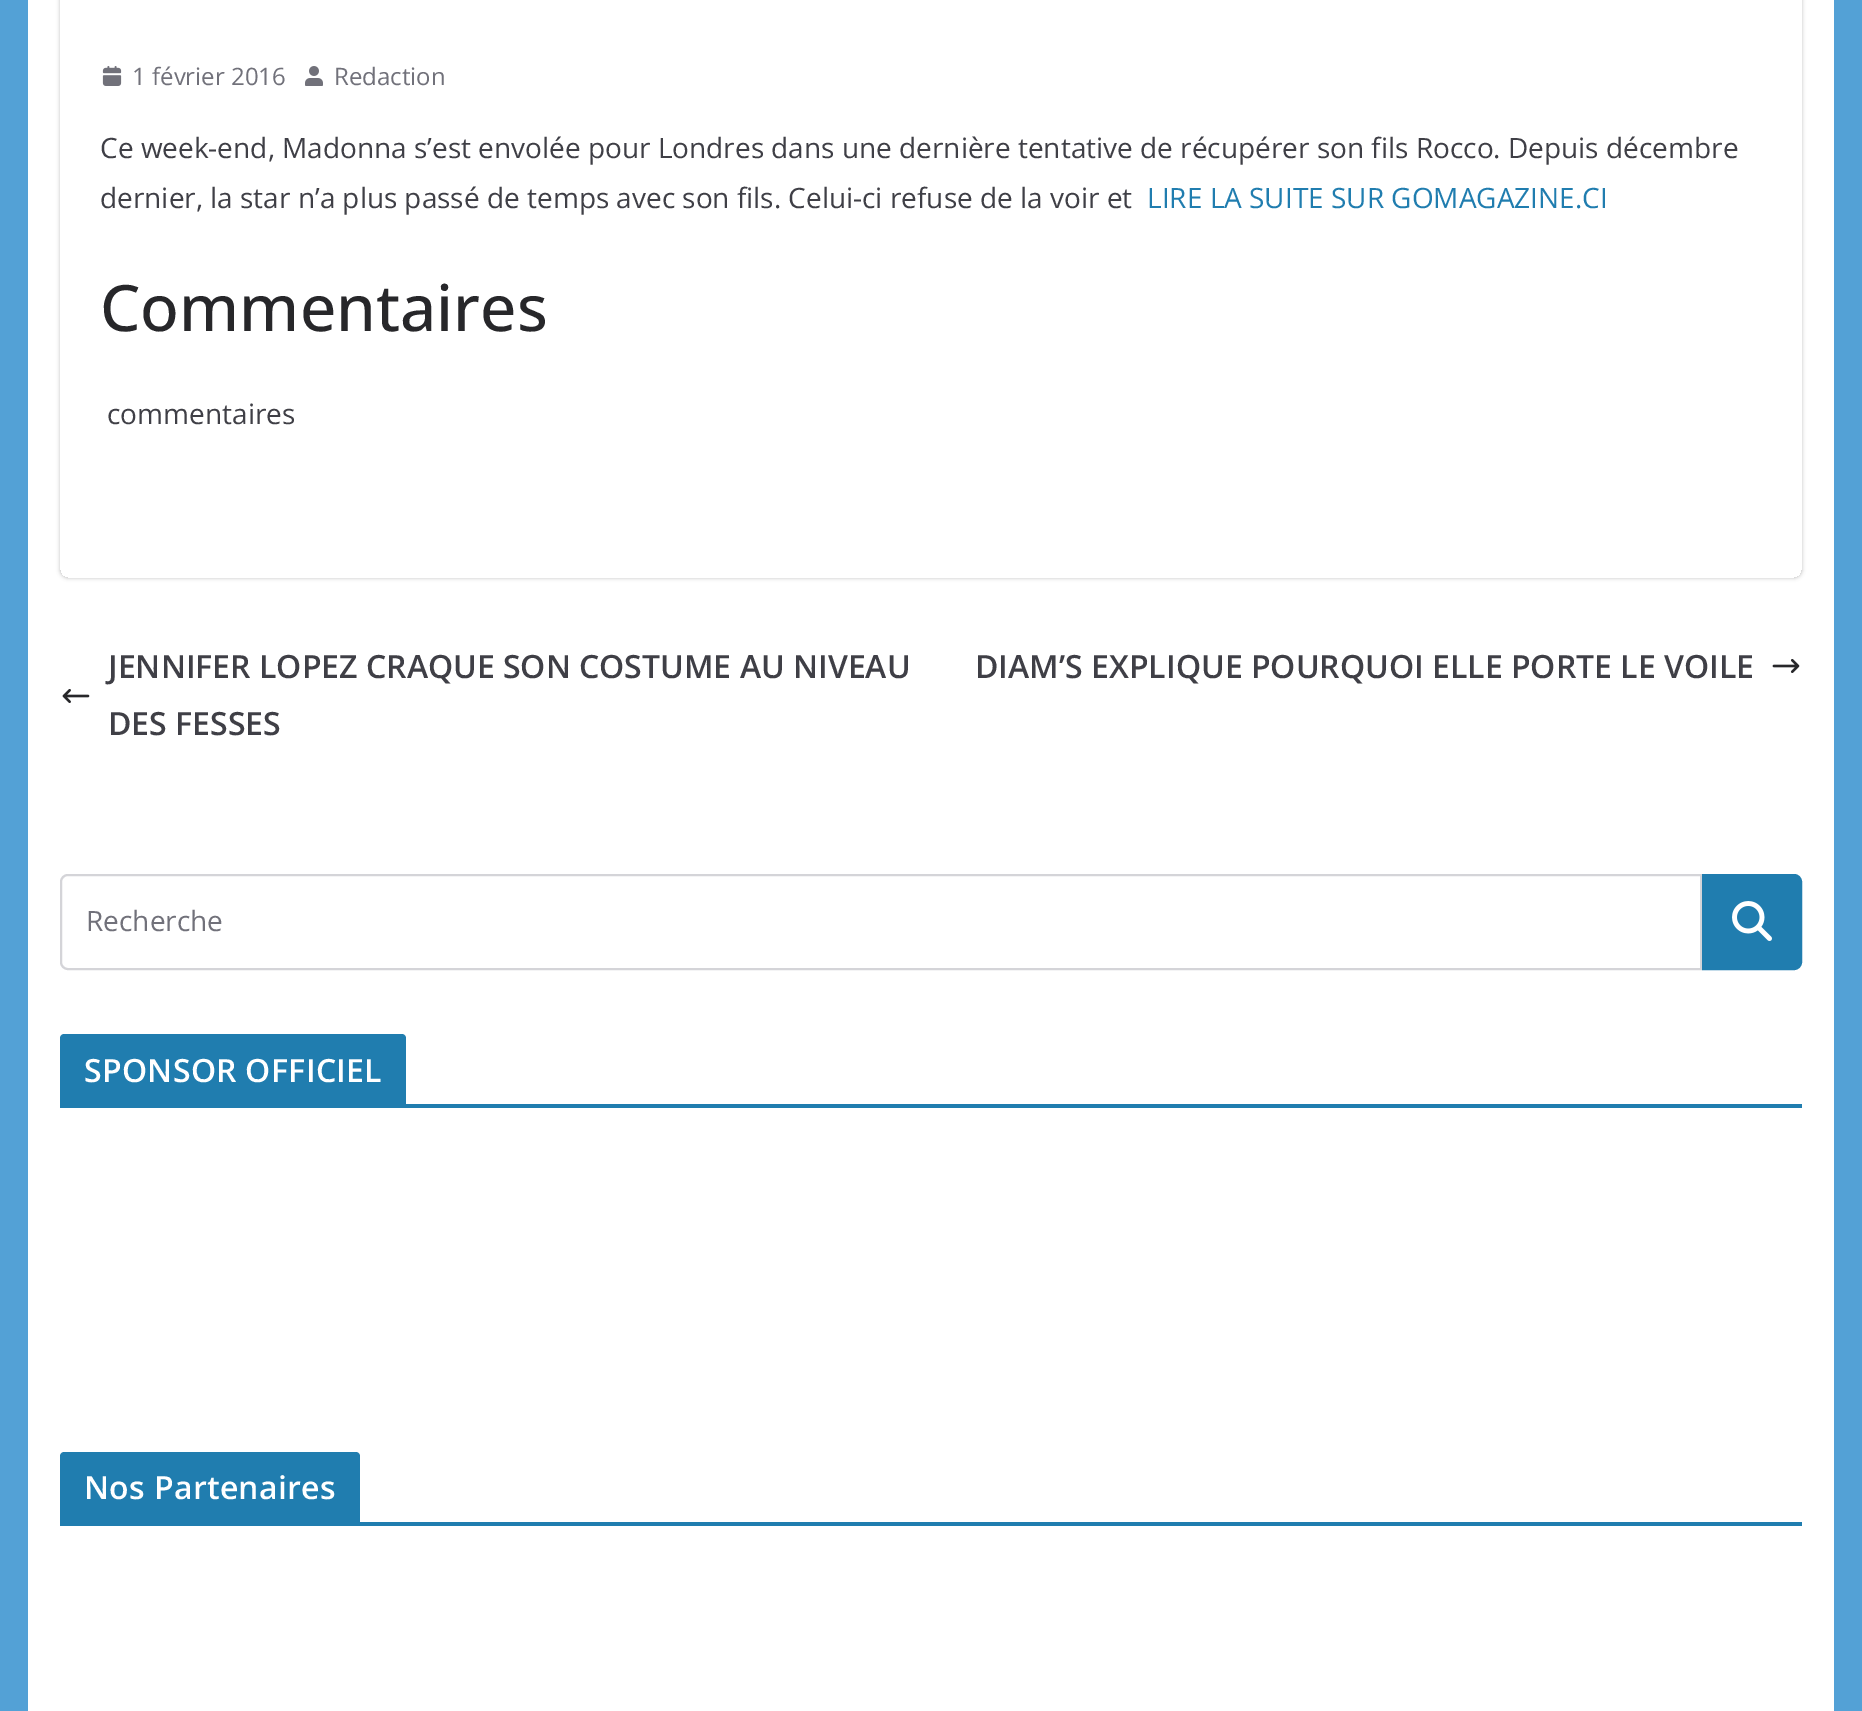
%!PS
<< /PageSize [1862 1711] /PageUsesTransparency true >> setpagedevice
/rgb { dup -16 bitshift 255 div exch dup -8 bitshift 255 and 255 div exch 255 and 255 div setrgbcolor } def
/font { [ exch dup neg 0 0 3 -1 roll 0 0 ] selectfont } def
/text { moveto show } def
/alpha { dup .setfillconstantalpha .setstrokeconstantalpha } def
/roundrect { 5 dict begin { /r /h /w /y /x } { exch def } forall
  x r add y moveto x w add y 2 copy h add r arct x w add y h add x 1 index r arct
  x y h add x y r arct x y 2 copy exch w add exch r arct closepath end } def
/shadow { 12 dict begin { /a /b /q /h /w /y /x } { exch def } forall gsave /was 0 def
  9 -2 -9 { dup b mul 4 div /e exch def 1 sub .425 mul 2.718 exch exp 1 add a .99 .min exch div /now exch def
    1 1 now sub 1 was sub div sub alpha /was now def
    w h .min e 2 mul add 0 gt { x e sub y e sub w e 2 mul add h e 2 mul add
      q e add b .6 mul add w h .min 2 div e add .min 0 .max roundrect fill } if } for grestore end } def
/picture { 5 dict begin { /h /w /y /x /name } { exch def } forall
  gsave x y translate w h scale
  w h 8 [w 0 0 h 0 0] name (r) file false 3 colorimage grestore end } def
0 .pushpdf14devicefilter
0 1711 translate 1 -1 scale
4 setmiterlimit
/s1 { /OpenSans-Regular 24 font 16#71717A rgb } def
/s2 { /OpenSans-Regular 28 font 16#3F3F46 rgb } def
/s3 { /OpenSans-Regular 28 font 16#207DAF rgb } def
/s4 { /OpenSans-Medium 64 font 16#27272A rgb } def
/s5 { /OpenSans-SemiBold 32 font 16#3F3F46 rgb } def
/s6 { /OpenSans-Regular 28 font 16#71717A rgb } def
16#53A1D6 rgb
0 0 1862 1711 rectfill
16#FFFFFF rgb
28 0 1806 1711 rectfill
gsave
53 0 moveto 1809 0 lineto 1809 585 lineto 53 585 lineto closepath 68 -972 moveto 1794 -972 lineto 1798.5 -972 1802 -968.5 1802 -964 curveto 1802 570 lineto 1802 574.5 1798.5 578 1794 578 curveto 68 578 lineto 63.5 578 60 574.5 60 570 curveto 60 -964 lineto 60 -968.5 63.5 -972 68 -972 curveto closepath eoclip newpath
16#000000 rgb
60 -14 1742 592 8 2 0.24 shadow
grestore
(pic1.raw) 102 66 20 20 picture
s1
(1 février 2016) 132 85 text
(pic2.raw) 305 66 18 20 picture
(Redaction) 334 85 text
s2
(Ce week-end, Madonna s’est envolée pour Londres dans une dernière tentative de récupérer son fils Rocco. Depuis décembre) 100 158 text
(dernier, la star n’a plus passé de temps avec son fils. Celui-ci refuse de la voir et) 100 208 text
s3
(LIRE LA SUITE SUR GOMAGAZINE.CI) 1147 208 text
s4
(Commentaires) 100 331 text
s2
(commentaires) 107 424 text
s5
(JENNIFER LOPEZ CRAQUE SON COSTUME AU NIVEAU) 108 678 text
(pic3.raw) 62 689 28 14 picture
(DES FESSES) 108 735 text
(DIAM’S EXPLIQUE POURQUOI ELLE PORTE LE VOILE) 975 678 text
(pic4.raw) 1772 659 28 14 picture
16#D4D4D8 rgb
2 setlinewidth
68 875 moveto 1701 875 lineto 1701 969 lineto 68 969 lineto 64 969 61 966 61 962 curveto 61 882 lineto 61 878 64 875 68 875 curveto closepath stroke
s6
(Recherche) 86 931 text
16#207DAF rgb
1703 875 moveto 1794 875 lineto 1798 875 1801 878 1801 882 curveto 1801 962 lineto 1801 966 1798 969 1794 969 curveto 1703 969 lineto closepath gsave fill grestore
stroke
(pic5.raw) 1732 901 40 40 picture
60 1104 1742 4 rectfill
64 1034 moveto 402 1034 lineto 404 1034 406 1036 406 1038 curveto 406 1104 lineto 60 1104 lineto 60 1038 lineto 60 1036 62 1034 64 1034 curveto closepath fill
/OpenSans-SemiBold 32 font
16#FFFFFF rgb
84 1082 moveto 0.3 0 (SPONSOR OFFICIEL) ashow
16#207DAF rgb
60 1522 1742 4 rectfill
64 1452 moveto 356 1452 lineto 358 1452 360 1454 360 1456 curveto 360 1522 lineto 60 1522 lineto 60 1456 lineto 60 1454 62 1452 64 1452 curveto closepath fill
16#FFFFFF rgb
84 1499 moveto 0.3 0 (Nos Partenaires) ashow
.poppdf14devicefilter showpage
